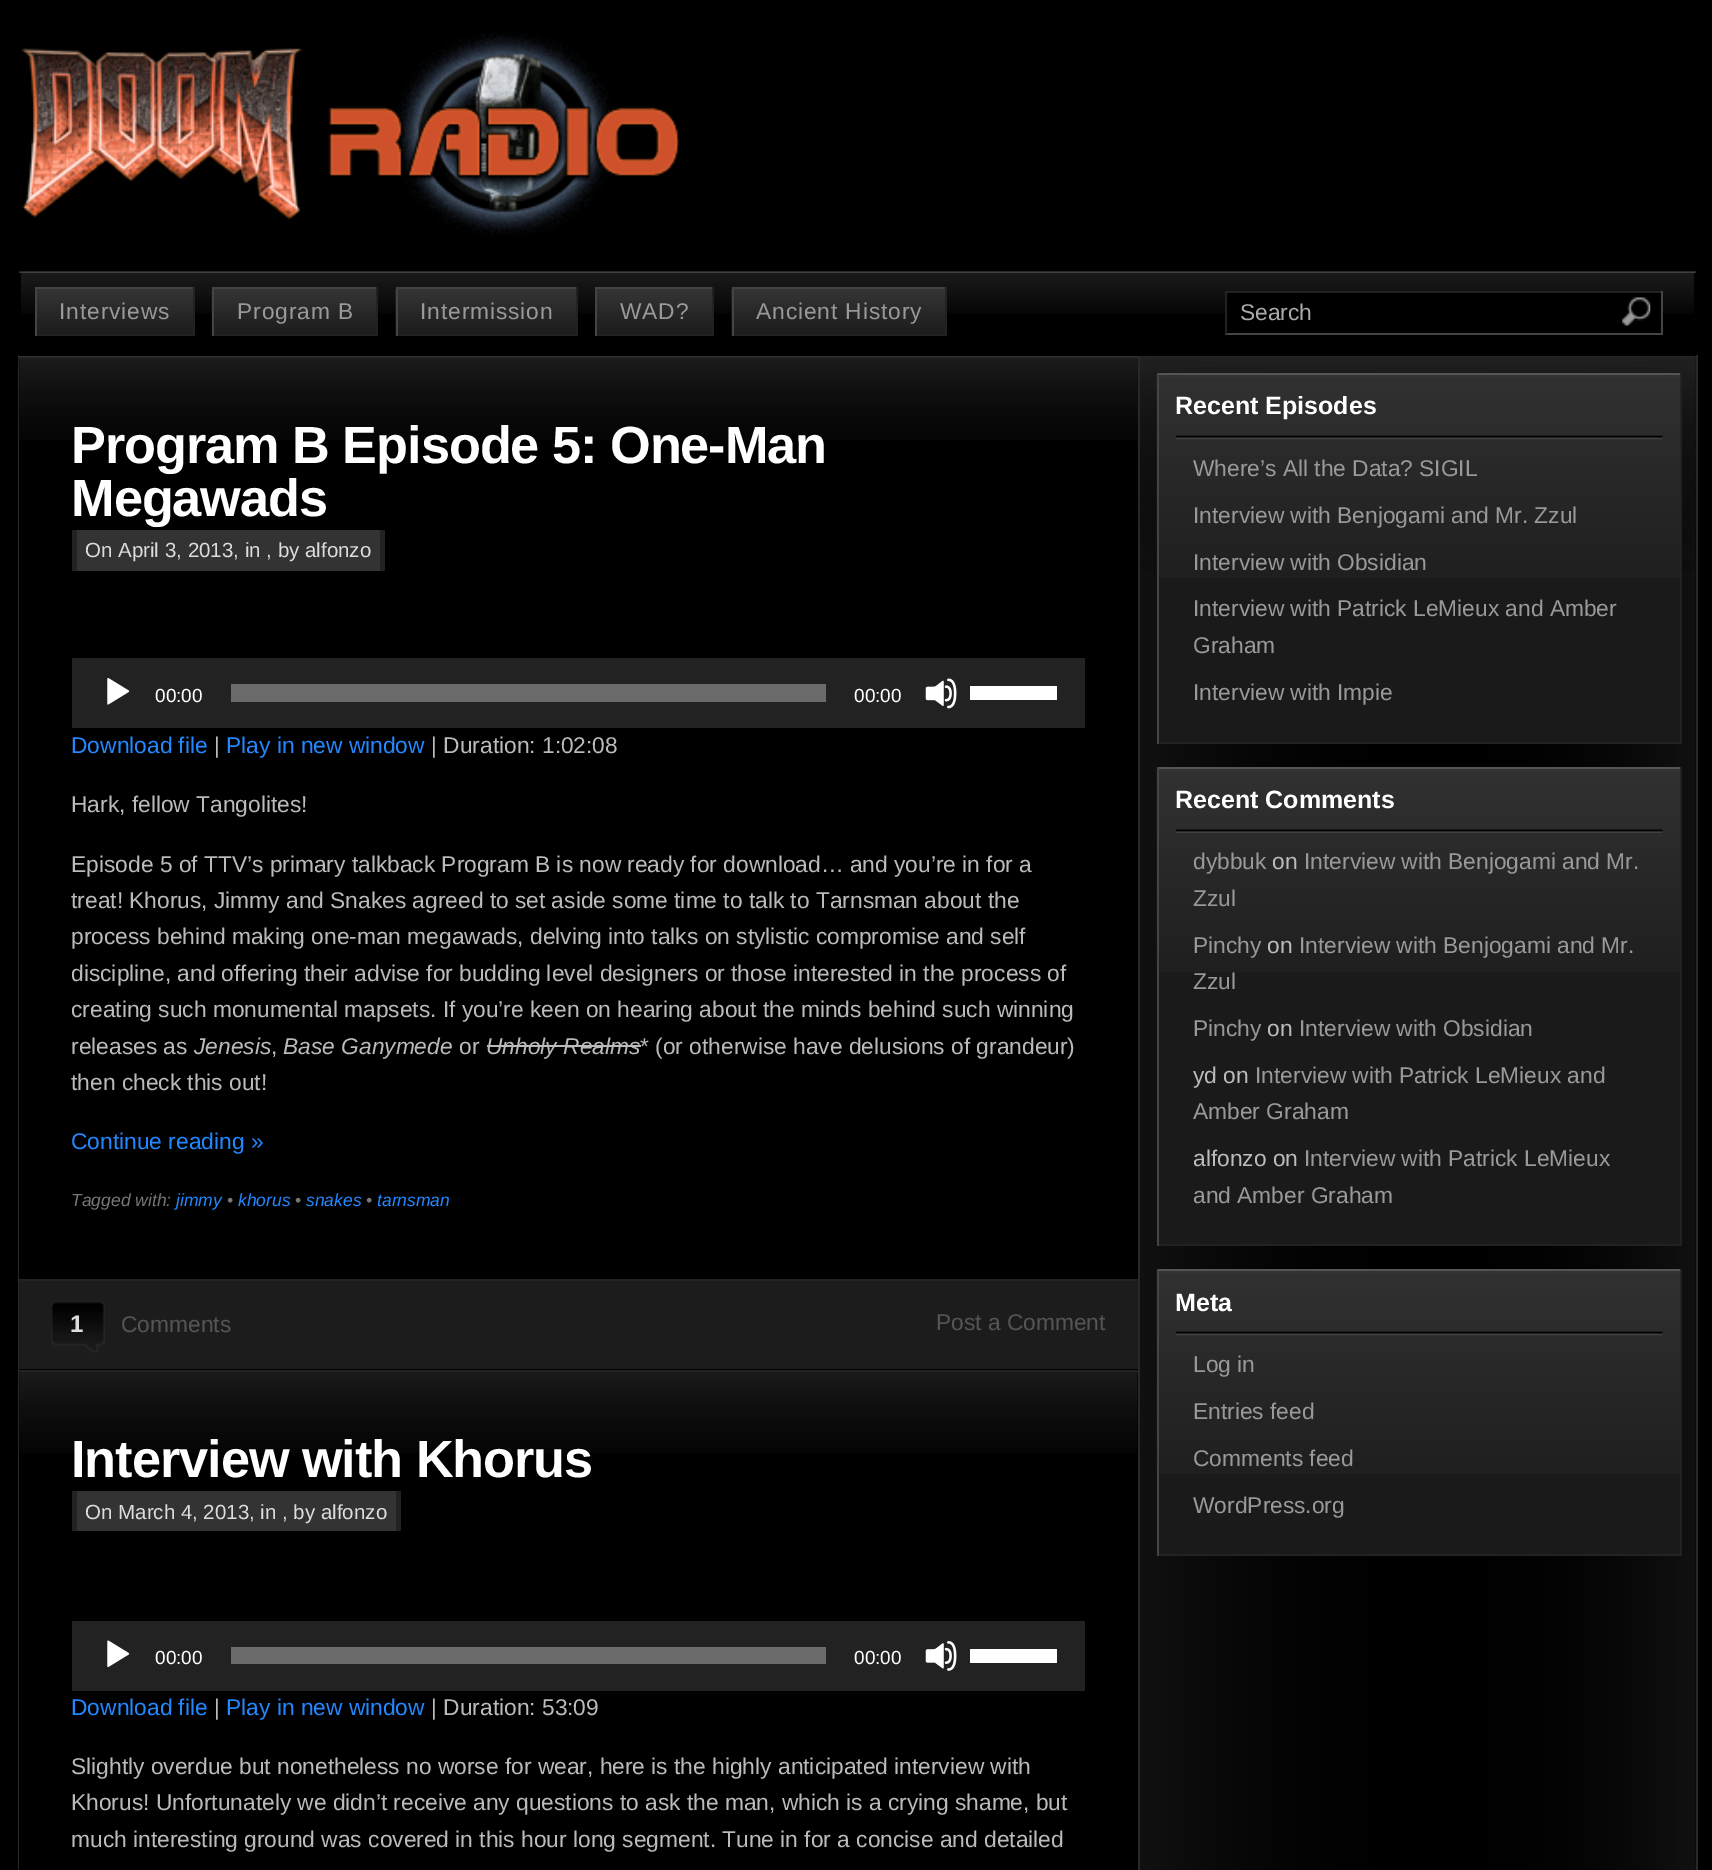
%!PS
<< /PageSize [1712 1870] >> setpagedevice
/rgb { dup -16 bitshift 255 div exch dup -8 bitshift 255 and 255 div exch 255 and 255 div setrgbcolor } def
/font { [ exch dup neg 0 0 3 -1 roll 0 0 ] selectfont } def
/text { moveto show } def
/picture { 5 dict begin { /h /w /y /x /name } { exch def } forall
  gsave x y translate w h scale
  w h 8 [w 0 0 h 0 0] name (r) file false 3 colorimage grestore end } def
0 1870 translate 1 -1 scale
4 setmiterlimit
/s1 { /LiberationSans-Regular 22.75 font 16#AAAAAA rgb } def
/s2 { /LiberationSans-Regular 20.5 font 16#DDDDDD rgb } def
/s3 { /LiberationSans-Regular 19 font 16#FFFFFF rgb } def
/s4 { /LiberationSans-Regular 22.75 font 16#2388FF rgb } def
/s5 { /LiberationSans-Regular 22.75 font 16#BBBBBB rgb } def
/s6 { /LiberationSans-Italic 22.75 font 16#BBBBBB rgb } def
/s7 { /LiberationSans-Italic 17.5 font 16#777777 rgb } def
/s8 { /LiberationSans-Italic 17.5 font 16#2388FF rgb } def
/s9 { /LiberationSans-Bold 24 font 16#DDDDDD rgb } def
/s10 { /LiberationSans-Regular 22.75 font 16#555555 rgb } def
/s11 { /LiberationSans-Bold 25 font 16#FFFFFF rgb } def
/s12 { /LiberationSans-Regular 22.75 font 16#999999 rgb } def
16#000000 rgb
0 0 1712 1870 rectfill
(pic1.raw) 21 32 659 204 picture
(pic2.raw) 19 271 1677 2 picture
(pic3.raw) 21 273 1673 41 picture
16#333333 rgb
19 356 1120 1 rectfill
(pic10.raw) 1140 356 556 1514 picture
(pic11.raw) 19 359 1119 81 picture
16#222222 rgb
19 357 1119 2 rectfill
(pic18.raw) 1137 356 559 215 picture
16#282828 rgb
1138 355 2 1246 rectfill
16#000000 rgb
1138 355 2 1 rectfill
(pic4.raw) 37 289 156 45 picture
16#444444 rgb
35 287 159 2 rectfill
16#222222 rgb
193 287 2 49 rectfill
35 334 159 2 rectfill
16#444444 rgb
35 287 2 49 rectfill
/LiberationSans-Regular 22.75 font
16#999999 rgb
59 319 moveto 0.9 0 (Interviews) ashow
(pic5.raw) 211 288 165 48 picture
16#444444 rgb
212 287 166 2 rectfill
16#222222 rgb
376 287 2 49 rectfill
212 334 166 2 rectfill
16#444444 rgb
212 287 2 49 rectfill
16#999999 rgb
237 319 moveto 0.9 0 (Program B) ashow
(pic6.raw) 395 288 181 48 picture
16#444444 rgb
396 287 182 2 rectfill
16#222222 rgb
576 287 2 49 rectfill
396 334 182 2 rectfill
16#444444 rgb
396 287 2 49 rectfill
16#999999 rgb
420 319 moveto 0.9 0 (Intermission) ashow
(pic7.raw) 597 289 115 45 picture
16#444444 rgb
595 287 119 2 rectfill
16#222222 rgb
712 287 2 49 rectfill
595 334 119 2 rectfill
16#444444 rgb
595 287 2 49 rectfill
16#999999 rgb
620 319 moveto 0.9 0 (WAD?) ashow
(pic8.raw) 731 288 214 48 picture
16#444444 rgb
732 287 215 2 rectfill
16#222222 rgb
945 287 2 49 rectfill
732 334 215 2 rectfill
16#444444 rgb
732 287 2 49 rectfill
16#999999 rgb
756 319 moveto 0.9 0 (Ancient History) ashow
16#000000 rgb
1227 293 434 21 rectfill
16#222222 rgb
1225 291 438 2 rectfill
16#444444 rgb
1661 291 2 43 rectfill
1225 333 438 2 rectfill
16#222222 rgb
1225 291 2 43 rectfill
s1
(Search) 1240 320 text
(pic9.raw) 1622 297 29 29 picture
16#282828 rgb
1696 355 2 1515 rectfill
18 355 1 1515 rectfill
1138 1601 2 269 rectfill
/LiberationSans-Bold 52.3 font
16#FFFFFF rgb
71 463 moveto -1.05 0 (Program B Episode 5: One-Man) ashow
71 516 moveto -1.05 0 (Megawads) ashow
16#333333 rgb
77 530 303 41 rectfill
s2
(On April 3, 2013, in , by alfonzo) 85 557 text
16#222222 rgb
380 530 5 41 rectfill
72 530 5 41 rectfill
72 658 1013 70 rectfill
(pic12.raw) 107 678 23 27 picture
s3
(00:00) 155 702 text
16#6B6B6B rgb
231 684 595 18 rectfill
s3
(00:00) 854 702 text
(pic13.raw) 925 678 32 31 picture
970 686 87 14 rectfill
s4
(Download file) 71 753 text
s5
(|) 214 753 text
s4
(Play in new window) 226 753 text
s5
(| Duration: 1:02:08) 431 753 text
(Hark, fellow Tangolites!) 71 812 text
(Episode 5 of TTV’s primary talkback Program B is now ready for download… and you’re in for a) 71 872 text
(treat! Khorus, Jimmy and Snakes agreed to set aside some time to talk to Tarnsman about the) 71 908 text
(process behind making one-man megawads, delving into talks on stylistic compromise and self) 71 944 text
(discipline, and offering their advise for budding level designers or those interested in the process of) 71 981 text
(creating such monumental mapsets. If you’re keen on hearing about the minds behind such winning) 71 1017 text
(releases as) 71 1054 text
s6
(Jenesis) 194 1054 text
s5
(,) 271 1054 text
s6
(Base Ganymede) 283 1054 text
s5
(or) 459 1054 text
s6
(Unholy Realms) 486 1054 text
487 1045 154 2 rectfill
s5
(* \(or otherwise have delusions of grandeur\)) 640 1054 text
(then check this out!) 71 1090 text
s4
(Continue reading ») 71 1149 text
s7
(Tagged with:) 71 1206 text
s8
(jimmy) 176 1206 text
s7
(•) 227 1206 text
s8
(khorus) 238 1206 text
s7
(•) 295 1206 text
s8
(snakes) 306 1206 text
s7
(•) 366 1206 text
s8
(tarnsman) 377 1206 text
16#1C1C1C rgb
19 1281 1119 88 rectfill
16#222222 rgb
19 1279 1119 2 rectfill
(pic14.raw) 51 1300 54 53 picture
s9
(1) 70 1332 text
s10
(Comments) 121 1332 text
(Post a Comment) 936 1330 text
(pic15.raw) 19 1372 1119 81 picture
16#222222 rgb
19 1370 1119 2 rectfill
/LiberationSans-Bold 52.3 font
16#FFFFFF rgb
71 1477 moveto -1.05 0 (Interview with Khorus) ashow
16#333333 rgb
77 1491 319 40 rectfill
s2
(On March 4, 2013, in , by alfonzo) 85 1519 text
16#222222 rgb
396 1491 5 40 rectfill
72 1491 5 40 rectfill
72 1621 1013 70 rectfill
(pic16.raw) 107 1640 23 27 picture
s3
(00:00) 155 1664 text
16#6B6B6B rgb
231 1647 595 17 rectfill
s3
(00:00) 854 1664 text
(pic17.raw) 925 1641 32 30 picture
970 1649 87 14 rectfill
s4
(Download file) 71 1715 text
s5
(|) 214 1715 text
s4
(Play in new window) 226 1715 text
s5
(| Duration: 53:09) 431 1715 text
(Slightly overdue but nonetheless no worse for wear, here is the highly anticipated interview with) 71 1774 text
(Khorus! Unfortunately we didn’t receive any questions to ask the man, which is a crying shame, but) 71 1810 text
(much interesting ground was covered in this hour long segment. Tune in for a concise and detailed) 71 1847 text
16#1A1A1A rgb
1159 578 521 164 rectfill
(pic19.raw) 1156 374 524 204 picture
16#555555 rgb
1157 373 525 2 rectfill
16#222222 rgb
1680 373 2 371 rectfill
1157 742 525 2 rectfill
16#444444 rgb
1157 373 2 371 rectfill
(pic20.raw) 1176 435 487 5 picture
s11
(Recent Episodes) 1175 414 text
s12
(Where’s All the Data? SIGIL) 1193 476 text
(Interview with Benjogami and Mr. Zzul) 1193 523 text
(Interview with Obsidian) 1193 570 text
(Interview with Patrick LeMieux and Amber) 1193 616 text
(Graham) 1193 653 text
(Interview with Impie) 1193 700 text
16#1A1A1A rgb
1159 972 521 272 rectfill
(pic21.raw) 1156 768 524 204 picture
16#555555 rgb
1157 767 525 2 rectfill
16#222222 rgb
1680 767 2 479 rectfill
1157 1244 525 2 rectfill
16#444444 rgb
1157 767 2 479 rectfill
(pic22.raw) 1176 829 487 4 picture
s11
(Recent Comments) 1175 808 text
s12
(dybbuk) 1193 869 text
s5
(on) 1272 869 text
s12
(Interview with Benjogami and Mr.) 1304 869 text
(Zzul) 1193 906 text
(Pinchy) 1193 953 text
s5
(on) 1267 953 text
s12
(Interview with Benjogami and Mr.) 1299 953 text
(Zzul) 1193 989 text
(Pinchy) 1193 1036 text
s5
(on) 1267 1036 text
s12
(Interview with Obsidian) 1299 1036 text
s5
(yd on) 1193 1083 text
s12
(Interview with Patrick LeMieux and) 1255 1083 text
(Amber Graham) 1193 1119 text
s5
(alfonzo on) 1193 1166 text
s12
(Interview with Patrick LeMieux) 1304 1166 text
(and Amber Graham) 1193 1203 text
16#1A1A1A rgb
1159 1474 521 80 rectfill
(pic23.raw) 1156 1270 524 204 picture
16#555555 rgb
1157 1269 525 2 rectfill
16#222222 rgb
1680 1269 2 287 rectfill
1157 1554 525 2 rectfill
16#444444 rgb
1157 1269 2 287 rectfill
(pic20.raw) 1176 1331 487 5 picture
s11
(Meta) 1175 1311 text
s12
(Log in) 1193 1372 text
(Entries feed) 1193 1419 text
(Comments feed) 1193 1466 text
(WordPress.org) 1193 1513 text
showpage
